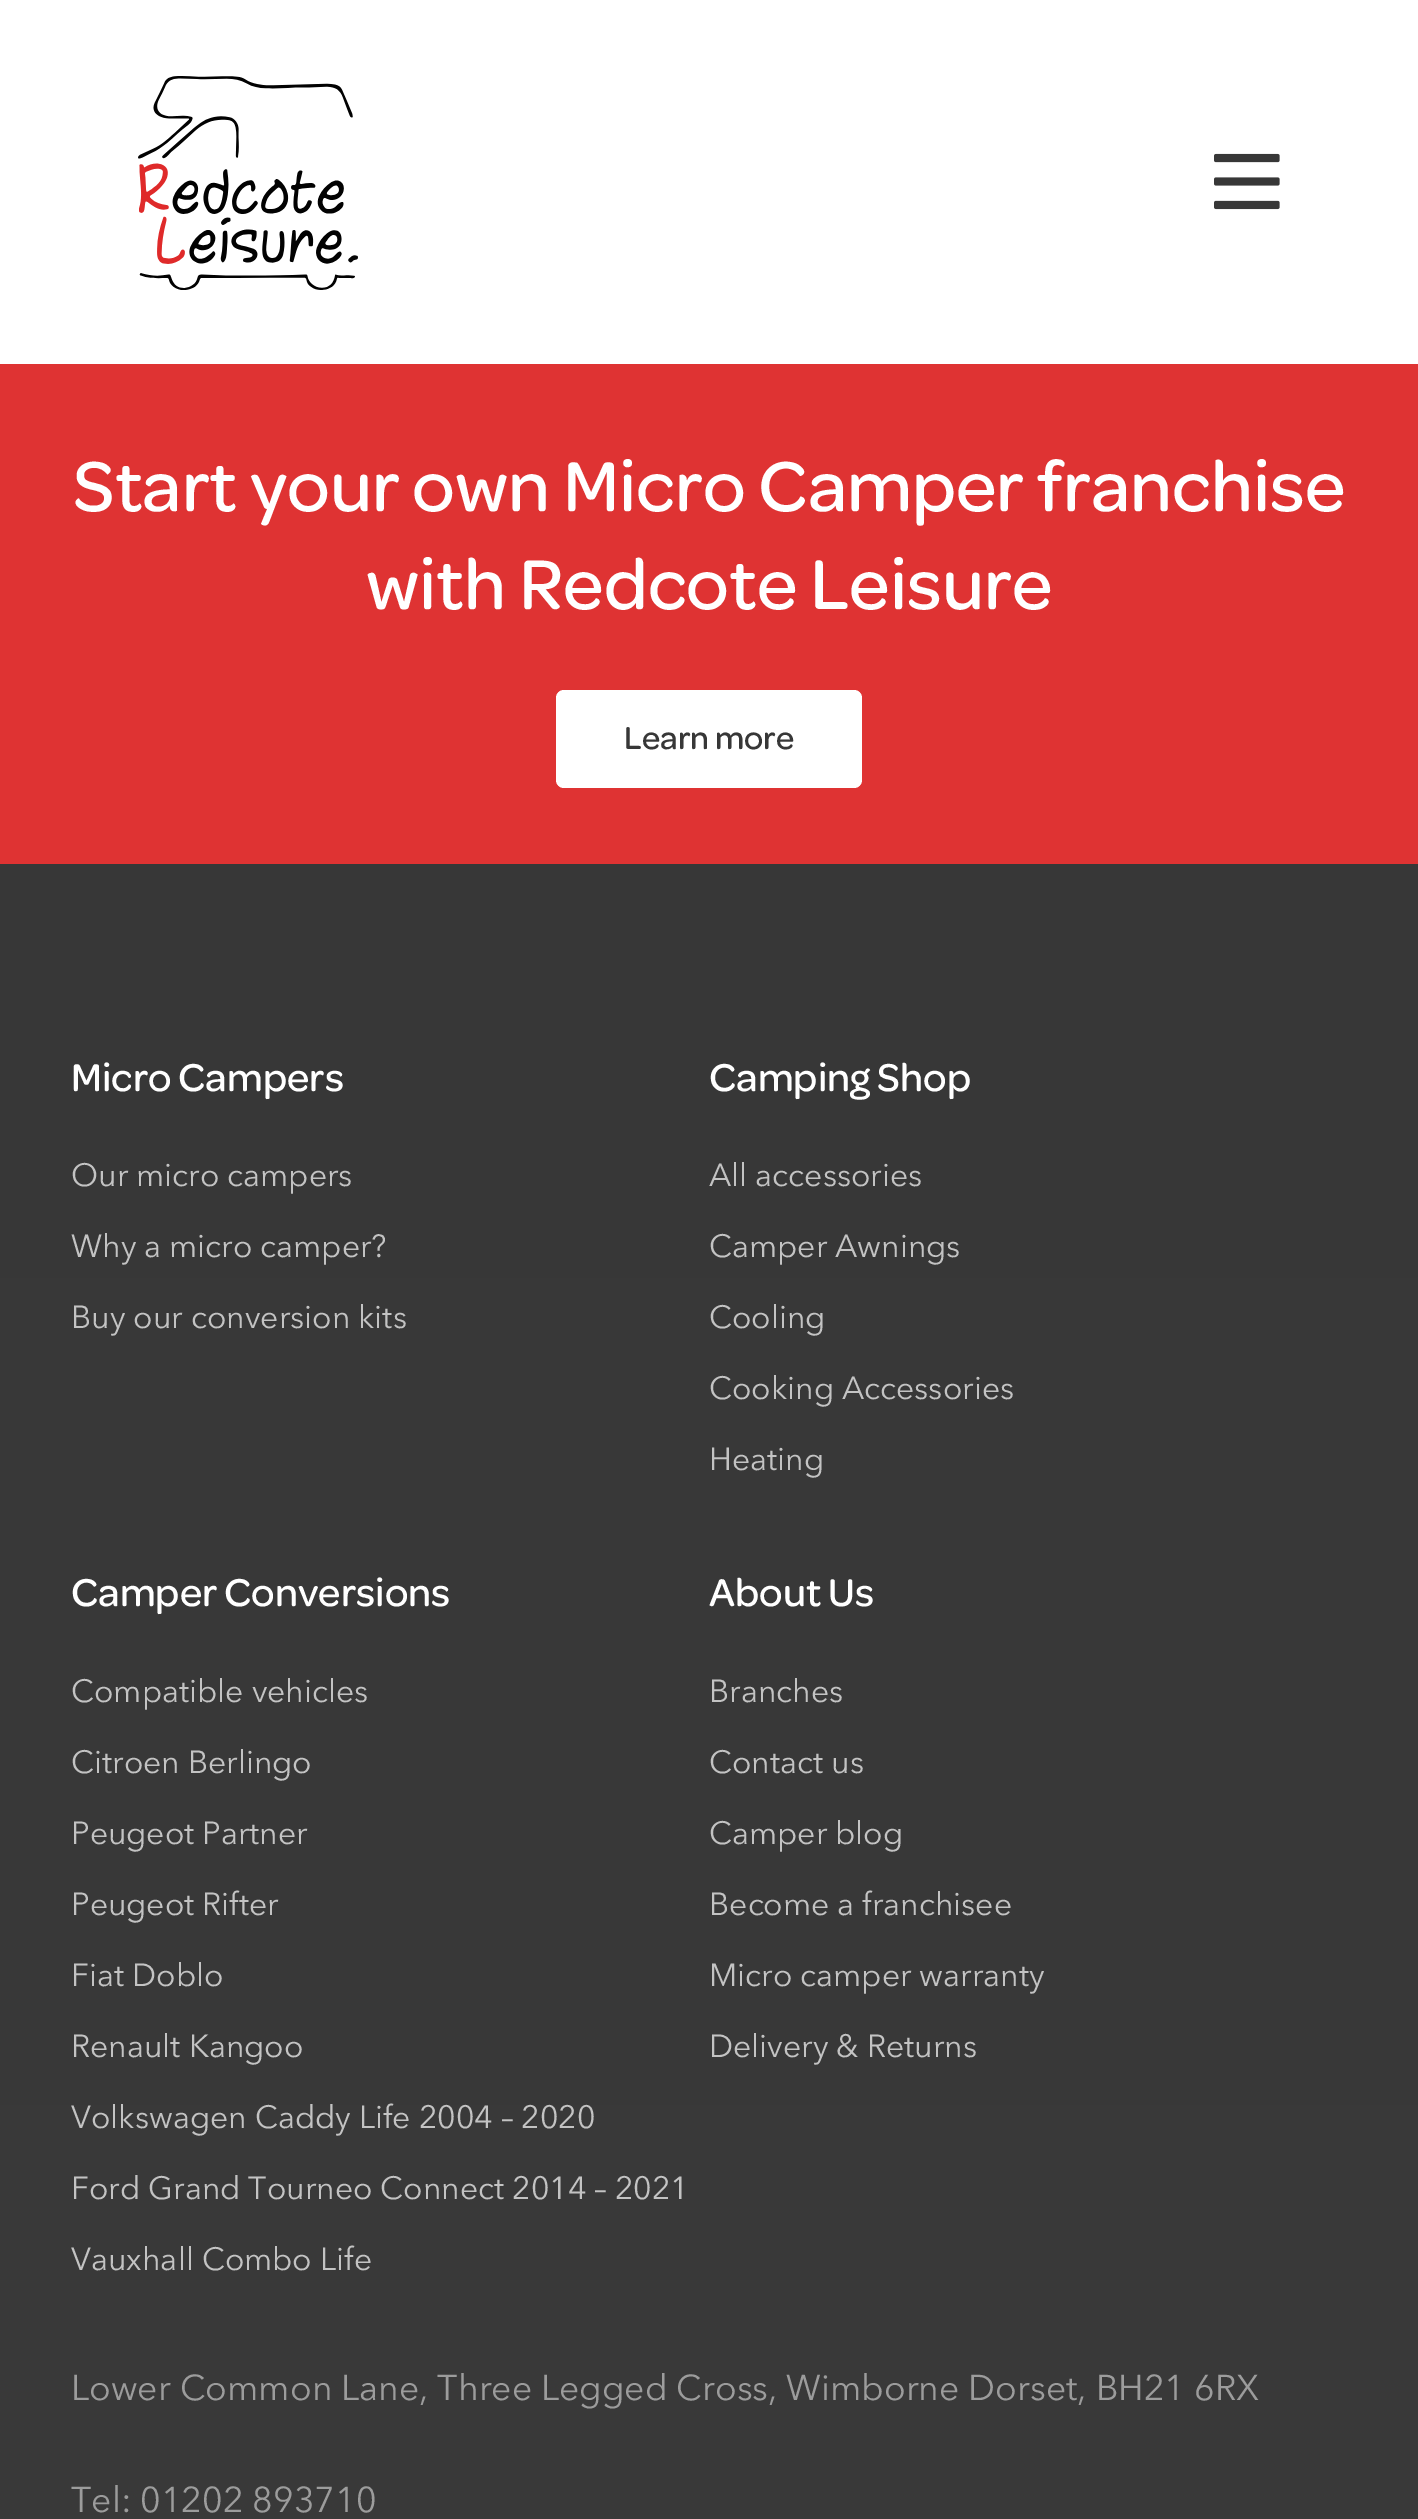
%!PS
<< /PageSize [1418 2519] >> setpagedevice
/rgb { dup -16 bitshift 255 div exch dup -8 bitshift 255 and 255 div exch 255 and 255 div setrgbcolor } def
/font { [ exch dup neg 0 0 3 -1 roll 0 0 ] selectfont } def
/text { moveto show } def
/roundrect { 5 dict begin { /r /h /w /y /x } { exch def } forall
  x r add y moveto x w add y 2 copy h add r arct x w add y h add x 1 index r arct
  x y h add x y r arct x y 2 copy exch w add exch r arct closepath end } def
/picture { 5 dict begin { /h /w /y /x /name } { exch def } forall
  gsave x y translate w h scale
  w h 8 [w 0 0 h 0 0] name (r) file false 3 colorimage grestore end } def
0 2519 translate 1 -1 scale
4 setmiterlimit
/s1 { /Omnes-Medium 75 font 16#FFFFFF rgb } def
/s2 { /Omnes-Medium 33.75 font 16#373737 rgb } def
/s3 { /Omnes-Medium 41.25 font 16#FFFFFF rgb } def
/s4 { /AvenirNext-Regular 31.9 font 16#C3C3C3 rgb } def
/s5 { /AvenirNext-Regular 35.6 font 16#9C9C9C rgb } def
16#FFFFFF rgb
0 0 1418 2519 rectfill
(pic1.raw) 138 76 220 214 picture
(pic2.raw) 1214 153 66 57 picture
16#DF3333 rgb
0 364 1418 500 rectfill
s1
(Start your own Micro Camper franchise) 73 511 text
(with Redcote Leisure) 366 609 text
556 690 306 98 8 roundrect fill
s2
(Learn more) 624 749 text
gsave 0 864 moveto 1418 864 lineto 1418 2519 lineto 0 2519 lineto closepath clip newpath
<< /ShadingType 2 /ColorSpace /DeviceRGB /Coords [709 864 709 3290] /Extend [true true] /Function << /FunctionType 2 /Domain [0 1] /C0 [0.216 0.216 0.216] /C1 [0.227 0.227 0.227] /N 1 >> >> shfill grestore
s3
(Micro Campers) 71 1091 text
s4
(Our micro campers) 71 1186 text
(Why a micro camper?) 71 1257 text
(Buy our conversion kits) 71 1328 text
s3
(Camping Shop) 709 1091 text
s4
(All accessories) 709 1186 text
(Camper Awnings) 709 1257 text
(Cooling) 709 1328 text
(Cooking Accessories) 709 1399 text
(Heating) 709 1470 text
s3
(Camper Conversions) 71 1606 text
s4
(Compatible vehicles) 71 1702 text
(Citroen Berlingo) 71 1773 text
(Peugeot Partner) 71 1844 text
(Peugeot Rifter) 71 1915 text
(Fiat Doblo) 71 1986 text
(Renault Kangoo) 71 2057 text
(Volkswagen Caddy Life 2004 – 2020) 71 2128 text
(Ford Grand Tourneo Connect 2014 – 2021) 71 2199 text
(Vauxhall Combo Life) 71 2270 text
s3
(About Us) 709 1606 text
s4
(Branches) 709 1702 text
(Contact us) 709 1773 text
(Camper blog) 709 1844 text
(Become a franchisee) 709 1915 text
(Micro camper warranty) 709 1986 text
(Delivery & Returns) 709 2057 text
s5
(Lower Common Lane, Three Legged Cross, Wimborne Dorset, BH21 6RX) 71 2400 text
(Tel: 01202 893710) 71 2512 text
showpage
